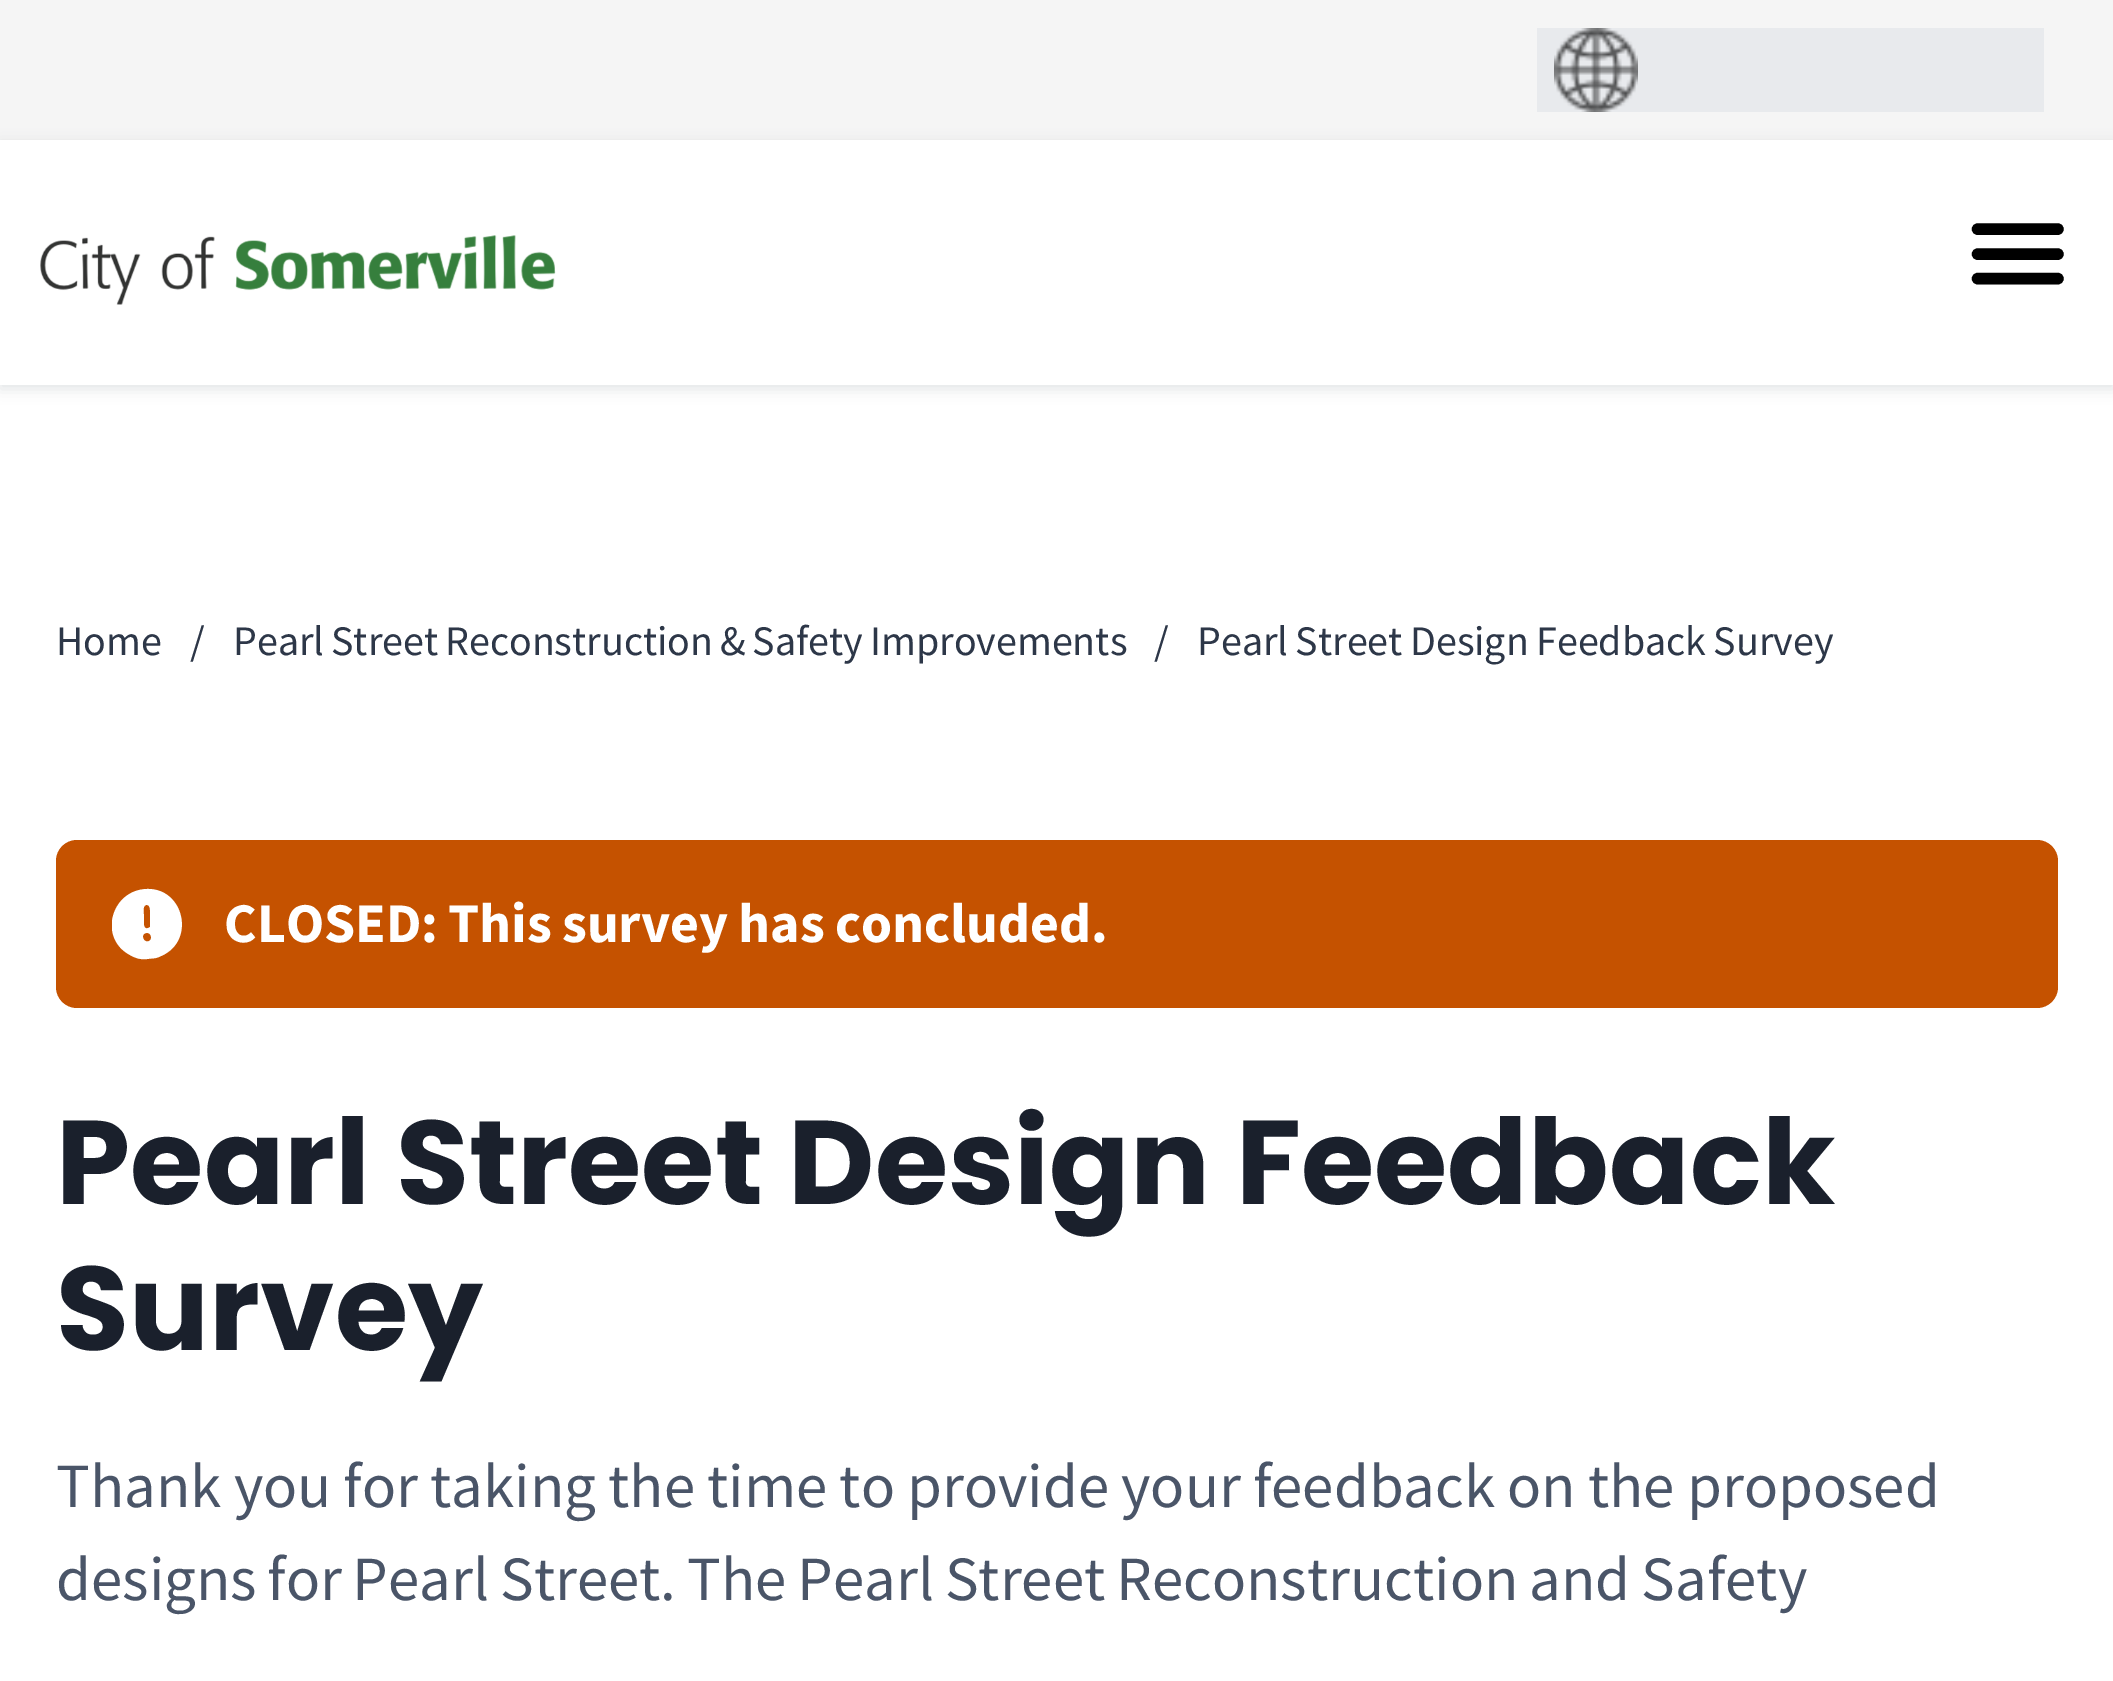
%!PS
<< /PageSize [2113 1681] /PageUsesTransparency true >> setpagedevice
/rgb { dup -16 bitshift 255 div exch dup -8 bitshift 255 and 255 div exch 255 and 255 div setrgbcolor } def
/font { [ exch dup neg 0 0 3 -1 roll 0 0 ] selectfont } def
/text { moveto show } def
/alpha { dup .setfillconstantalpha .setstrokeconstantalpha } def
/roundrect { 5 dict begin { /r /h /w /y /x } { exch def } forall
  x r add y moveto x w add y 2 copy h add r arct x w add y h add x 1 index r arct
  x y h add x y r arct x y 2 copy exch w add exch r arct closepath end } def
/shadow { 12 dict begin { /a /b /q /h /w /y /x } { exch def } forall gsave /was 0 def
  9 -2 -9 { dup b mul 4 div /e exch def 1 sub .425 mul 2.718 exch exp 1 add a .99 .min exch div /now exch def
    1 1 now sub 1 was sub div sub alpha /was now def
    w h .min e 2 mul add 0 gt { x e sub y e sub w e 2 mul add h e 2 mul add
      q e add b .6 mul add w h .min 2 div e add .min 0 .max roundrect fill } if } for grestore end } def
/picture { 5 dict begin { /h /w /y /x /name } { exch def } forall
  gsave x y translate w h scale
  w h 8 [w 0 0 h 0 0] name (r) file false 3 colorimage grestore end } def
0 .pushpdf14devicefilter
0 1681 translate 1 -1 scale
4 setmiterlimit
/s1 { /SourceSansPro-Regular 42 font 16#2D3748 rgb } def
/s2 { /Poppins-Bold 119 font 16#1A202C rgb } def
/s3 { /SourceSansPro-Regular 63 font 16#4A5568 rgb } def
16#FFFFFF rgb
0 0 2113 1681 rectfill
16#F5F5F5 rgb
0 0 2113 140 rectfill
16#E8EAED rgb
1537 28 507 84 rectfill
(pic1.raw) 1554 28 84 84 picture
gsave
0 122 moveto 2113 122 lineto 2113 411 lineto 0 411 lineto closepath 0 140 moveto 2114 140 lineto 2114 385 lineto 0 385 lineto closepath eoclip newpath
16#68737D rgb
0 144 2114 245 0 7 0.2 shadow
grestore
(pic2.raw) 40 235 516 70 picture
16#000000 rgb
11.5 setlinewidth
1 setlinecap
1977.5 229 moveto 2058 229 lineto 1977.5 254 moveto 2058 254 lineto 1977.5 278.5 moveto 2058 278.5 lineto stroke
s1
(Home) 56 655 text
(/) 190 655 text
233 655 moveto -1.5 0 32 (Pearl Street Reconstruction & Safety Improvements) widthshow
(/) 1154 655 text
1197 655 moveto -1 0 32 (Pearl Street Design Feedback Survey) widthshow
16#C55200 rgb
56 840 2002 168 21 roundrect fill
gsave
112 882 70 84 rectclip
16#FFFFFF rgb
147 889 moveto 111 890 98 938 130 955 curveto 135 958 141 960 147 959 curveto 153 958 155 959 161 956 curveto 196 941 184 888 147 889 curveto closepath 143 937 moveto 142 932 151 931 151 937 curveto 152 943 143 943 143 937 curveto closepath 144 925 moveto 144 917 lineto 144 914 142 906 146 905 curveto 151 904 150 912 150 914 curveto 150 927 lineto 148 929 144 929 144 925 curveto closepath fill
grestore
/SourceSansPro-Bold 56 font
16#FFFFFF rgb
224 942 moveto -1 0 32 (CLOSED: This survey has concluded.) widthshow
s2
(Pearl Street Design Feedback) 56 1204 text
(Survey) 56 1350 text
/SourceSansPro-Regular 63 font
16#4A5568 rgb
56 1507 moveto -0.5 0 32 (Thank you for taking the time to provide your feedback on the proposed) widthshow
(design) 56 1600 text
230 1600 moveto -1.75 0 32 (s for Pearl Street. The Pearl Street Reconstruction and Safety) widthshow
.poppdf14devicefilter showpage
